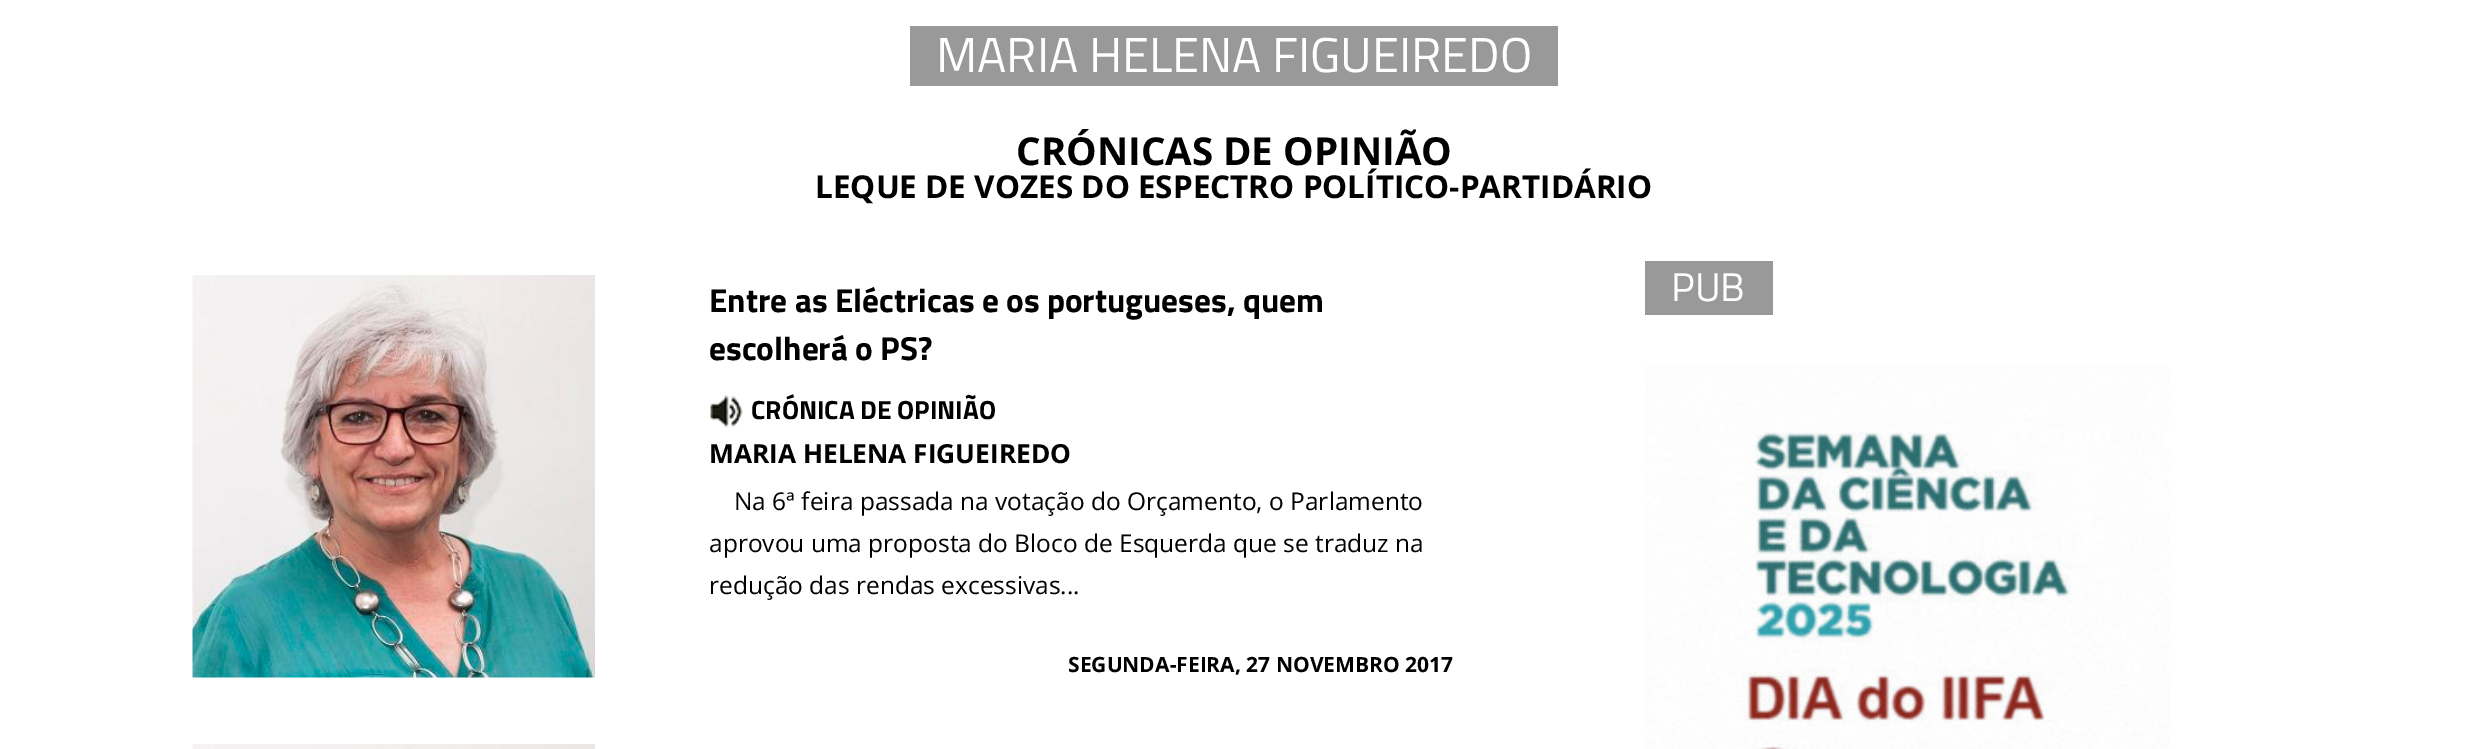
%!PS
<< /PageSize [2466 749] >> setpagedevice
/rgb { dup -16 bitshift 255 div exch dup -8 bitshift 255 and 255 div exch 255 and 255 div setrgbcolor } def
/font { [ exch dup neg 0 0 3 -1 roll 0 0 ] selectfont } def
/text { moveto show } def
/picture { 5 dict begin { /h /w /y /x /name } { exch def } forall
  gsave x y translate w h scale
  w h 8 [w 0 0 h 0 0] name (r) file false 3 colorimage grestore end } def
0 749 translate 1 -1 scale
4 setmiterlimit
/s1 { /TitilliumWeb-Regular 49 font 16#FFFFFF rgb } def
/s2 { /OpenSans-Bold 38.5 font 16#000000 rgb } def
/s3 { /OpenSans-Bold 31.5 font 16#000000 rgb } def
/s4 { /TitilliumWeb-Bold 33.25 font 16#000000 rgb } def
/s5 { /TitilliumWeb-Bold 26.25 font 16#000000 rgb } def
/s6 { /OpenSans-Bold 26.25 font 16#000000 rgb } def
/s7 { /OpenSans-Regular 24.5 font 16#000000 rgb } def
/s8 { /OpenSans-Bold 21 font 16#000000 rgb } def
/s9 { /TitilliumWeb-Regular 40 font 16#FFFFFF rgb } def
16#FFFFFF rgb
0 0 2466 749 rectfill
16#999999 rgb
910 26 648 60 rectfill
s1
(MARIA HELENA FIGUEIREDO) 936 72 text
s2
(CRÓNICAS DE OPINIÃO) 1016 165 text
s3
(LEQUE DE VOZES DO ESPECTRO POLÍTICO-PARTIDÁRIO) 815 198 text
(pic1.raw) 192 275 403 403 picture
s4
(Entre as Eléctricas e os portugueses, quem) 709 312 text
(escolherá o PS?) 709 360 text
(pic2.raw) 710 395 33 33 picture
s5
(CRÓNICA DE OPINIÃO) 751 419 text
s6
(MARIA HELENA FIGUEIREDO) 709 463 text
s7
(Na 6ª feira passada na votação do Orçamento, o Parlamento) 734 510 text
(aprovou uma proposta do Bloco de Esquerda que se traduz na) 709 552 text
(redução das rendas excessivas...) 709 594 text
s8
(SEGUNDA-FEIRA, 27 NOVEMBRO 2017) 1068 672 text
(pic3.raw) 192 744 403 5 picture
16#999999 rgb
1645 261 128 54 rectfill
s9
(PUB) 1671 301 text
(pic4.raw) 1645 366 525 383 picture
showpage
